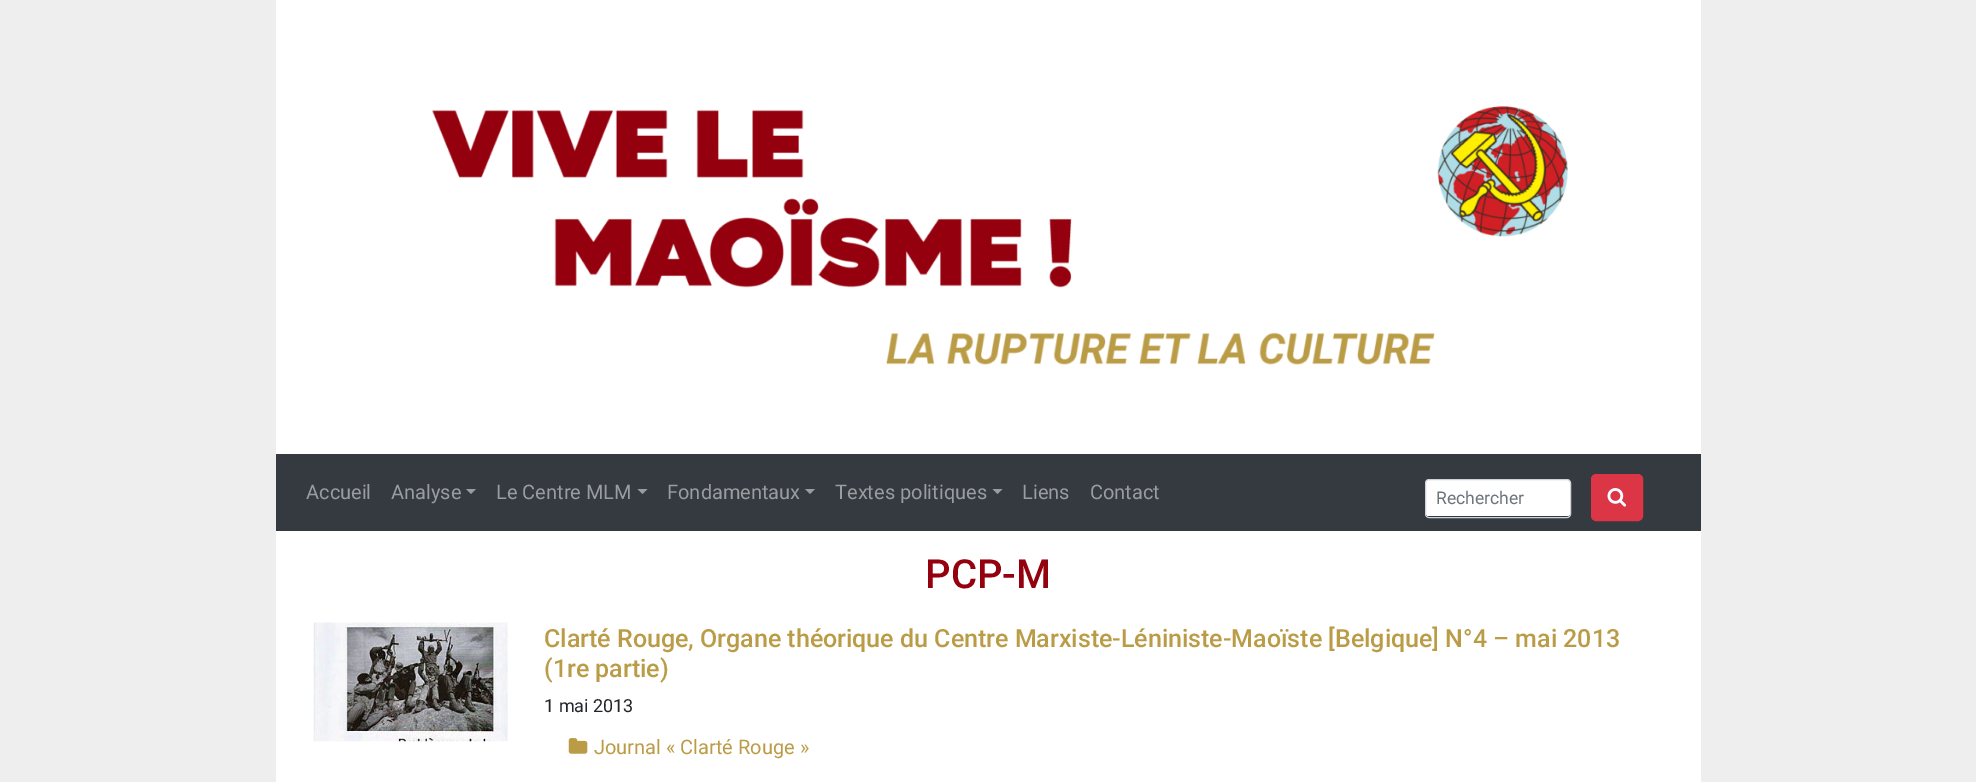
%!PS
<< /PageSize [1976 782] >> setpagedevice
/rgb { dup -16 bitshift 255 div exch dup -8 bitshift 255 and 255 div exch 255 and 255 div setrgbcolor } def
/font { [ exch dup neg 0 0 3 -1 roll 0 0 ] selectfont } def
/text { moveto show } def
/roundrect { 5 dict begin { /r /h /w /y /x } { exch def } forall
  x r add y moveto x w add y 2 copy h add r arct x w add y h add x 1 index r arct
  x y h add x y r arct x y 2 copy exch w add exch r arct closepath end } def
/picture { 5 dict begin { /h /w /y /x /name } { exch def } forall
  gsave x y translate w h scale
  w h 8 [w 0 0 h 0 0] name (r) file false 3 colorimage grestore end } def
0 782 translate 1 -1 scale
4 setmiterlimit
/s1 { /Roboto-Regular 20 font 16#9A9DA0 rgb } def
/s2 { /Roboto-Regular 17.5 font 16#6C757D rgb } def
/s3 { /Roboto-Medium 40 font 16#94000D rgb } def
/s4 { /Roboto-Medium 25 font 16#BB9C46 rgb } def
/s5 { /Roboto-Regular 18 font 16#212529 rgb } def
/s6 { /Roboto-Regular 20 font 16#BB9C46 rgb } def
16#EEEEEE rgb
0 0 1976 782 rectfill
16#FFFFFF rgb
276 0 1425 454 rectfill
(pic1.raw) 431 106 1138 259 picture
276 531 1425 251 rectfill
16#343A40 rgb
276 454 1425 77 rectfill
s1
(Accueil) 306 499 text
(Analyse) 391 499 text
466 489 moveto 476 489 lineto 471 494 lineto closepath fill
(Le Centre MLM) 496 499 text
637.5 489 moveto 647.5 489 lineto 642.5 494 lineto closepath fill
(Fondamentaux) 667 499 text
805 489 moveto 815 489 lineto 810 494 lineto closepath fill
(Textes politiques) 835 499 text
992.5 489 moveto 1002.5 489 lineto 997.5 494 lineto closepath fill
(Liens) 1022 499 text
(Contact) 1090 499 text
16#FFFFFF rgb
1426 480 144 36 2.5 roundrect fill
16#CED4DA rgb
1425.5 479.5 145 38 3.5 roundrect stroke
s2
(Rechercher) 1436 504 text
16#DC3545 rgb
1591.5 474.5 51 46 4.5 roundrect gsave fill grestore
stroke
(pic2.raw) 1607 488 20 19 picture
s3
(PCP-M) 925 588 text
(pic3.raw) 313 622 195 120 picture
s4
(Clarté Rouge, Organe théorique du Centre Marxiste-Léniniste-Maoïste [Belgique] N°4 – mai 2013) 544 647 text
(\(1re partie\)) 544 677 text
s5
(1 mai 2013) 544 712 text
(pic4.raw) 568 738 20 16 picture
s6
(Journal « Clarté Rouge ») 594 754 text
showpage
